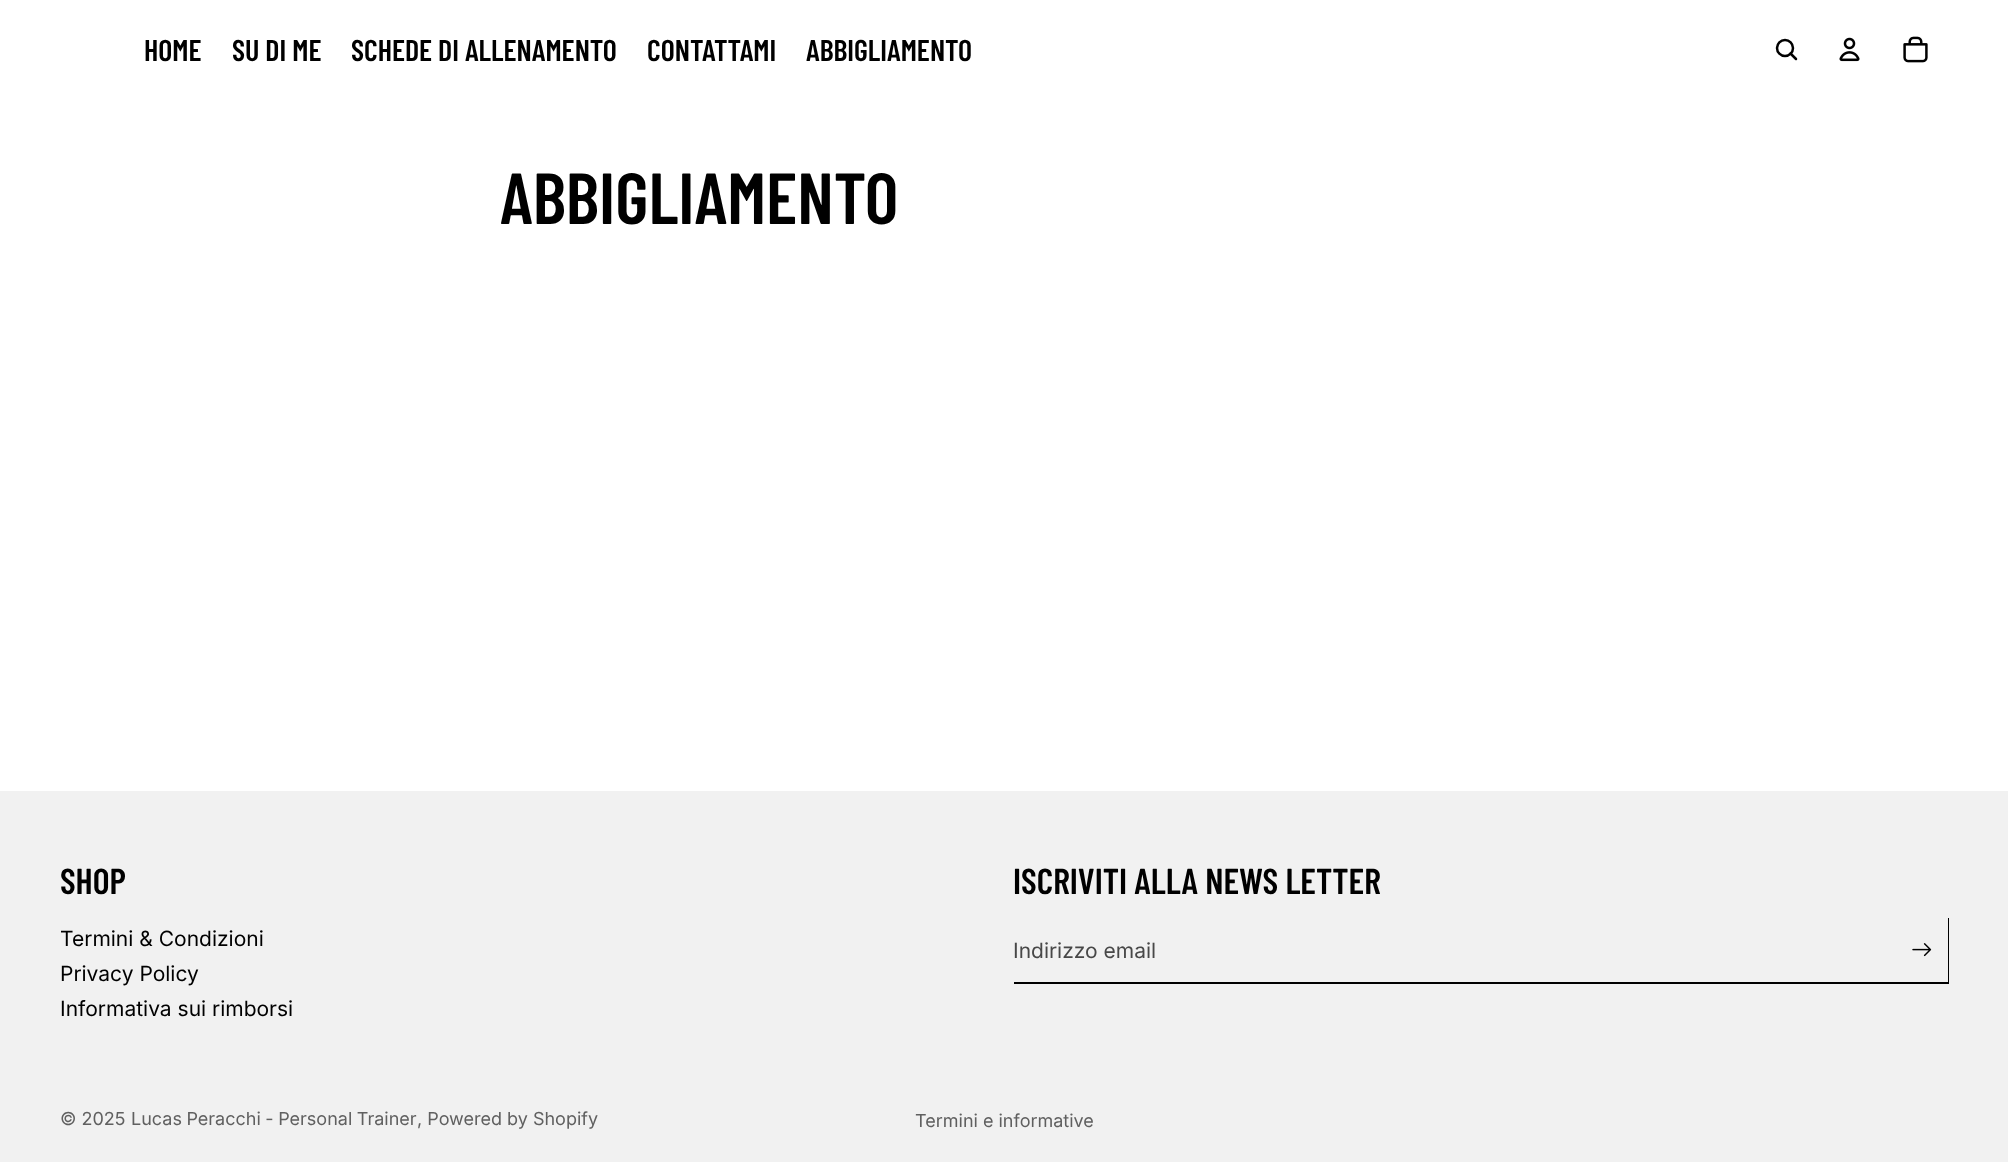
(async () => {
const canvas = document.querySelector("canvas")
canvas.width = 2008
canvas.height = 1162
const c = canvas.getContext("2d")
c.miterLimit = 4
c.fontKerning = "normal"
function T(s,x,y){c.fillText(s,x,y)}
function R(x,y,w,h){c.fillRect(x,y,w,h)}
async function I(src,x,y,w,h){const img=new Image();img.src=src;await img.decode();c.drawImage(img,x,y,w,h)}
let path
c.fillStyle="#fff"
R(0,0,2008,1162)
c.font="600 30px Barlow Condensed"
c.fillStyle="#000"
T("HOME",144,61)
T("SU DI ME",232,61)
T("SCHEDE DI ALLENAMENTO",351,61)
T("CONTATTAMI",647,61)
T("ABBIGLIAMENTO",806,61)
c.beginPath()
c.arc(1785,48,8,0,7)
c.strokeStyle="#000"
c.lineWidth=2.5
c.stroke()
path = new Path2D("M1790.5 53.5l5.5 5.5")
c.lineCap="round"
c.lineJoin="round"
c.stroke(path)
await I("1.png",1839,37,21,25)
await I("2.png",1903,36,25,27)
c.font="600 72px Barlow Condensed"
T("ABBIGLIAMENTO",500,224)
c.fillStyle="#f1f1f1"
R(0,791,2008,371)
c.font="600 36px Barlow Condensed"
c.fillStyle="#000"
T("SHOP",60,894)
c.font="21px Inter"
T("Termini & Condizioni",60,946)
T("Privacy Policy",60,981)
T("Informativa sui rimborsi",60,1016)
c.font="600 36px Barlow Condensed"
T("ISCRIVITI ALLA NEWS LETTER",1013,894)
path = new Path2D("M1014 982v2h935v-66h-1v64z")
c.fill(path)
c.font="21px Inter"
c.fillStyle="#484848"
T("Indirizzo email",1013,958)
await I("3.png",1912,943,20,14)
c.font="18px Inter"
c.fillStyle="#606060"
T("© 2025",60,1125)
c.wordSpacing="-0.5px"
T("Lucas Peracchi - Personal Trainer",131,1125)
c.wordSpacing="0px"
T(", Powered by Shopify",417,1125)
T("Termini e informative",915,1127)
})()
